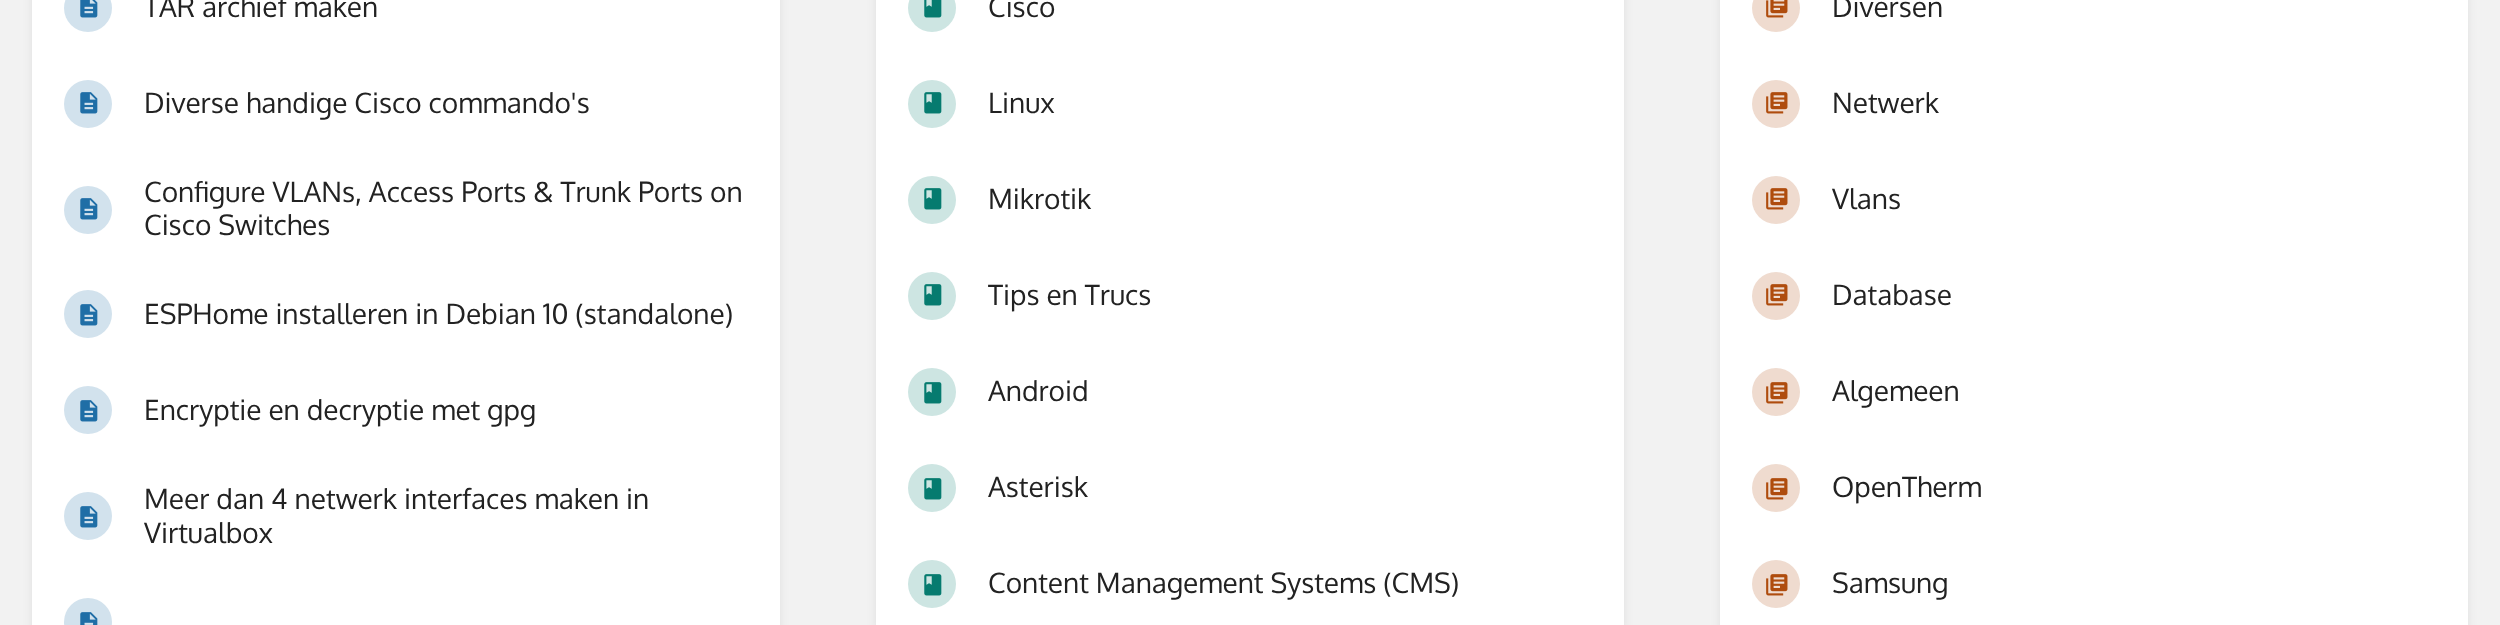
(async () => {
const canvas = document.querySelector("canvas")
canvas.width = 2500
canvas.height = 625
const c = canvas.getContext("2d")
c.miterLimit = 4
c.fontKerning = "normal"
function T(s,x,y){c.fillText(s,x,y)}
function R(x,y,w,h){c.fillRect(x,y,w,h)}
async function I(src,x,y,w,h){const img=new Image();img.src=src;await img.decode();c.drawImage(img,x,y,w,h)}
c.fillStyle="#f2f2f2"
R(0,0,2500,625)
c.fillStyle="#0000001a"
c.filter="blur(6px)"
c.beginPath()
c.roundRect(34,-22,744,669,4)
c.fill()
c.filter="none"
c.fillStyle="#fff"
R(32,0,748,625)
await I("1.png",80,0,18,18)
c.fillStyle="#206ea733"
c.beginPath()
c.arc(88,8,24,0,7)
c.fill()
c.font="28px Oxygen"
c.fillStyle="#222"
T("TAR archief maken",144,17)
await I("2.png",80,92,18,22)
c.fillStyle="#206ea733"
c.beginPath()
c.arc(88,104,24,0,7)
c.fill()
c.fillStyle="#222"
T("Diverse handige Cisco commando's",144,113)
await I("2.png",80,198,18,22)
c.fillStyle="#206ea733"
c.beginPath()
c.arc(88,210,24,0,7)
c.fill()
c.fillStyle="#222"
T("Configure VLANs, Access Ports & Trunk Ports on",144,202)
T("Cisco Switches",144,235)
await I("2.png",80,304,18,22)
c.fillStyle="#206ea733"
c.beginPath()
c.arc(88,314,24,0,7)
c.fill()
c.fillStyle="#222"
T("ESPHome installeren in Debian 10 (standalone)",144,324)
await I("2.png",80,400,18,22)
c.fillStyle="#206ea733"
c.beginPath()
c.arc(88,410,24,0,7)
c.fill()
c.fillStyle="#222"
T("Encryptie en decryptie met gpg",144,420)
await I("2.png",80,506,18,22)
c.fillStyle="#206ea733"
c.beginPath()
c.arc(88,516,24,0,7)
c.fill()
c.fillStyle="#222"
T("Meer dan 4 netwerk interfaces maken in",144,509)
T("Virtualbox",144,543)
await I("3.png",80,612,18,13)
c.fillStyle="#206ea733"
c.beginPath()
c.arc(88,622,24,0,7)
c.fill()
c.fillStyle="#0000001a"
c.filter="blur(6px)"
c.beginPath()
c.roundRect(878,-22,744,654,4)
c.fill()
c.filter="none"
c.fillStyle="#fff"
R(876,0,748,625)
await I("4.png",924,0,18,18)
c.fillStyle="#077b7033"
c.beginPath()
c.arc(932,8,24,0,7)
c.fill()
c.fillStyle="#222"
T("Cisco",988,17)
await I("5.png",924,92,18,22)
c.fillStyle="#077b7033"
c.beginPath()
c.arc(932,104,24,0,7)
c.fill()
c.fillStyle="#222"
T("Linux",988,113)
await I("5.png",924,188,18,22)
c.fillStyle="#077b7033"
c.beginPath()
c.arc(932,200,24,0,7)
c.fill()
c.fillStyle="#222"
T("Mikrotik",988,209)
await I("5.png",924,284,18,22)
c.fillStyle="#077b7033"
c.beginPath()
c.arc(932,296,24,0,7)
c.fill()
c.fillStyle="#222"
T("Tips en Trucs",988,305)
await I("5.png",924,382,18,22)
c.fillStyle="#077b7033"
c.beginPath()
c.arc(932,392,24,0,7)
c.fill()
c.fillStyle="#222"
T("Android",988,401)
await I("5.png",924,478,18,22)
c.fillStyle="#077b7033"
c.beginPath()
c.arc(932,488,24,0,7)
c.fill()
c.fillStyle="#222"
T("Asterisk",988,497)
await I("5.png",924,574,18,22)
c.fillStyle="#077b7033"
c.beginPath()
c.arc(932,584,24,0,7)
c.fill()
c.fillStyle="#222"
T("Content Management Systems (CMS)",988,593)
c.fillStyle="#0000001a"
c.filter="blur(6px)"
c.beginPath()
c.roundRect(1722,-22,744,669,4)
c.fill()
c.filter="none"
c.fillStyle="#fff"
R(1720,0,748,625)
await I("6.png",1766,0,22,18)
c.fillStyle="#af4d0d33"
c.beginPath()
c.arc(1776,8,24,0,7)
c.fill()
c.fillStyle="#222"
T("Diversen",1832,17)
await I("7.png",1766,92,22,22)
c.fillStyle="#af4d0d33"
c.beginPath()
c.arc(1776,104,24,0,7)
c.fill()
c.fillStyle="#222"
T("Netwerk",1832,113)
await I("7.png",1766,188,22,22)
c.fillStyle="#af4d0d33"
c.beginPath()
c.arc(1776,200,24,0,7)
c.fill()
c.fillStyle="#222"
T("Vlans",1832,209)
await I("7.png",1766,284,22,22)
c.fillStyle="#af4d0d33"
c.beginPath()
c.arc(1776,296,24,0,7)
c.fill()
c.fillStyle="#222"
T("Database",1832,305)
await I("7.png",1766,382,22,22)
c.fillStyle="#af4d0d33"
c.beginPath()
c.arc(1776,392,24,0,7)
c.fill()
c.fillStyle="#222"
T("Algemeen",1832,401)
await I("7.png",1766,478,22,22)
c.fillStyle="#af4d0d33"
c.beginPath()
c.arc(1776,488,24,0,7)
c.fill()
c.fillStyle="#222"
T("OpenTherm",1832,497)
await I("7.png",1766,574,22,22)
c.fillStyle="#af4d0d33"
c.beginPath()
c.arc(1776,584,24,0,7)
c.fill()
c.fillStyle="#222"
T("Samsung",1832,593)
})()
